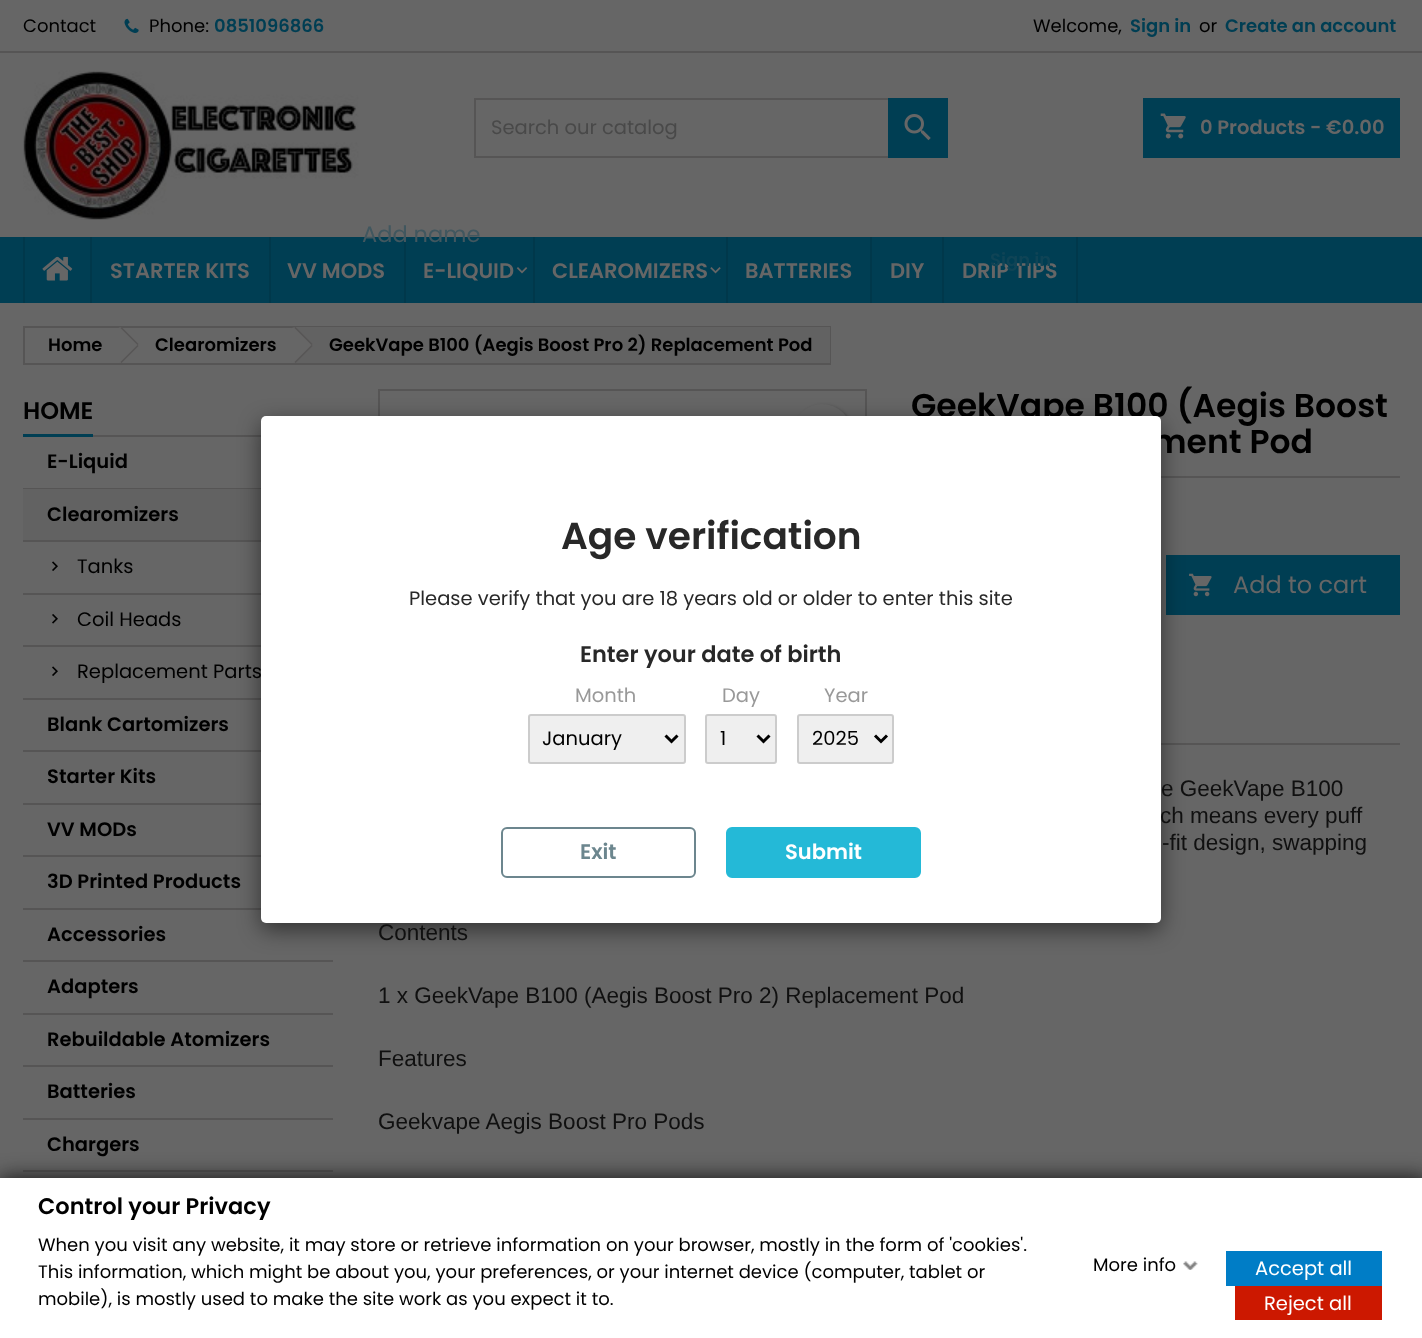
(async () => {
const canvas = document.querySelector("canvas")
canvas.width = 1422
canvas.height = 1338
const c = canvas.getContext("2d")
c.miterLimit = 4
c.fontKerning = "normal"
function T(s,x,y){c.fillText(s,x,y)}
function R(x,y,w,h){c.fillRect(x,y,w,h)}
function Q(x,y,w,h,r){c.beginPath();c.roundRect(x,y,w,h,r);c.fill()}
async function I(src,x,y,w,h){const img=new Image();img.src=src;await img.decode();c.drawImage(img,x,y,w,h)}
let path
c.fillStyle="#666"
R(0,0,1422,1338)
c.fillStyle="#565555"
R(0,51,1422,2)
c.font="18px Poppins"
c.fillStyle="#000"
T("Contact",23,32)
await I("1.png",124,18,15,15)
T("Phone:",149,32)
c.font="600 18px Poppins"
c.fillStyle="#003e53"
T("0851096866",214,32)
c.font="18px Poppins"
c.fillStyle="#000"
T("Welcome,",1033,32)
c.font="600 18px Poppins"
c.fillStyle="#003e53"
T("Sign in",1130,32)
c.font="18px Poppins"
c.fillStyle="#000"
T("or",1199,32)
c.font="600 18px Poppins"
c.fillStyle="#003e53"
T("Create an account",1225,32)
await I("2.png",23,70,336,150)
c.strokeStyle="#565555"
c.lineWidth=2
c.strokeRect(475,99,472,58)
c.font="19.5px Poppins"
c.fillStyle="#494949"
T("Search our catalog",491,134)
c.fillStyle="#003e53"
R(888,98,60,60)
await I("3.png",904,114,27,27)
R(1143,98,257,60)
await I("4.png",1160,113,26,26)
c.font="600 19.5px Poppins"
c.fillStyle="#666"
T("0 Products - €0.00",1200,134)
c.fillStyle="#003e53"
R(0,237,1422,66)
c.fillStyle="#00384b"
R(23,237,2,66)
await I("5.png",42,256,31,25)
R(90,237,2,66)
c.font="600 21px Poppins"
c.fillStyle="#666"
T("STARTER KITS",110,278)
c.fillStyle="#00384b"
R(269,237,2,66)
c.fillStyle="#666"
T("VV MODS",287,278)
c.fillStyle="#00384b"
R(404,237,2,66)
c.fillStyle="#666"
T("E-LIQUID",423,278)
await I("6.png",516,267,12,7)
c.fillStyle="#00384b"
R(533,237,2,66)
c.fillStyle="#666"
T("CLEAROMIZERS",552,278)
await I("7.png",710,267,11,7)
c.fillStyle="#00384b"
R(726,237,2,66)
c.fillStyle="#666"
T("BATTERIES",745,278)
c.fillStyle="#00384b"
R(870,237,2,66)
c.fillStyle="#666"
T("DIY",890,278)
c.fillStyle="#00384b"
R(1076,237,2,66)
R(942,237,2,66)
c.fillStyle="#666"
T("DRIP TIPS",962,278)
c.font="22.5px Poppins"
c.fillStyle="#41575f"
T("Add name",362,242)
c.font="600 18px Poppins"
c.fillStyle="#0f4456"
T("Sign in",990,266)
c.fillStyle="#565555"
R(93,435,168,2)
R(23,488,238,1)
c.fillStyle="#626262"
R(23,489,238,51)
c.fillStyle="#565555"
R(23,540,238,2)
R(23,593,238,2)
R(23,645,238,2)
R(23,698,238,2)
R(23,750,238,2)
R(23,803,238,2)
R(23,855,238,2)
R(23,908,238,2)
R(23,960,310,2)
c.strokeRect(379,390,487,28)
c.fillStyle="#00000033"
c.filter="blur(1.5px)"
c.beginPath()
c.roundRect(794,405,60,60,30)
c.fill()
c.filter="none"
c.fillStyle="#666"
c.beginPath()
c.arc(822,434,30,0,7)
c.fill()
c.fillStyle="#565555"
R(1161,476,239,2)
c.fillStyle="#003e53"
R(1166,555,234,60)
await I("10.png",1189,573,23,24)
c.fillStyle="#565555"
R(1161,743,239,2)
c.fillStyle="#00000080"
c.filter="blur(11px)"
c.beginPath()
c.roundRect(261,423,900,507,5)
c.fill()
c.filter="none"
c.font="600 33px Poppins"
c.fillStyle="#000"
T("GeekVape B100 (Aegis Boost",911,417)
T("ment Pod",1152,453)
c.fillStyle="#fff"
Q(261,416,900,507,5)
c.font="600 37.5px Poppins"
c.fillStyle="#282828"
T("Age verification",561,549)
c.font="19.5px Poppins"
T("Please verify that you are 18 years old or older to enter this site",409,605)
c.font="600 22.5px Poppins"
T("Enter your date of birth",580,662)
c.font="19.5px Poppins"
c.fillStyle="#999"
T("Month",575,702)
c.fillStyle="#efefef"
c.beginPath()
c.roundRect(529,715,156,48,2)
c.fill()
c.strokeStyle="#ccc"
c.stroke()
path = new Path2D("M665.5 735.5l6 6l6-6")
c.strokeStyle="#000"
c.lineWidth=3
c.stroke(path)
c.fillStyle="#000"
T("January",542,745)
c.fillStyle="#999"
T("Day",722,702)
c.fillStyle="#efefef"
c.beginPath()
c.roundRect(706,715,70,48,2)
c.fill()
c.strokeStyle="#ccc"
c.lineWidth=2
c.stroke()
path = new Path2D("M757.5 735.5l6 6l6-6")
c.strokeStyle="#000"
c.lineWidth=3
c.stroke(path)
c.fillStyle="#000"
T("1",720,745)
c.fillStyle="#999"
T("Year",824,702)
c.fillStyle="#efefef"
c.beginPath()
c.roundRect(798,715,95,48,2)
c.fill()
c.strokeStyle="#ccc"
c.lineWidth=2
c.stroke()
path = new Path2D("M875 735.5l6 6l6-6")
c.strokeStyle="#000"
c.lineWidth=3
c.stroke(path)
c.fillStyle="#000"
T("2025",812,745)
c.beginPath()
c.roundRect(502,828,193,49,5)
c.strokeStyle="#6c868e"
c.lineWidth=2
c.stroke()
c.font="600 21px Poppins"
c.fillStyle="#6c868e"
T("Exit",580,859)
c.fillStyle="#24b9d7"
c.beginPath()
c.roundRect(727,828,193,49,5)
c.fill()
c.strokeStyle="#24b9d7"
c.stroke()
c.fillStyle="#fff"
T("Submit",785,859)
c.strokeStyle="#565555"
c.strokeRect(24,327,806,37)
c.font="600 18px Poppins"
c.fillStyle="#000"
T("Home",48,351)
c.fillStyle="#666"
path = new Path2D("M122.5 328l15 15c1 1 1 3 0 4l-15 15c-1 1-3 1-4 0l-15-15c-1.5-1-1.5-3 0-4l15-15c1-1 3-1 4 0z")
c.fill(path)
c.fillStyle="#565555"
path = new Path2D("M121.5 327l17 17l-1 1l-17-17zm16 18l1 1l-17 17l-1-1z")
c.fill(path)
c.fillStyle="#000"
T("Clearomizers",155,351)
c.fillStyle="#626262"
R(296,327,534,36)
c.fillStyle="#666"
path = new Path2D("M296.5 328l15 15c1 1 1 3 0 4l-15 15c-1 1-3 1-4.5 0l-14.5-15c-1.5-1-1.5-3 0-4l14.5-15c1.5-1 3.5-1 4.5 0z")
c.fill(path)
c.fillStyle="#565555"
path = new Path2D("M295.5 327l17 17l-1 1l-17-17zm16 18l1 1l-17 17l-1-1z")
c.fill(path)
c.fillStyle="#000"
T("GeekVape B100 (Aegis Boost Pro 2) Replacement Pod",329,351)
c.fillStyle="#003e53"
R(23,434,70,3)
c.font="600 24px Poppins"
c.fillStyle="#000"
T("HOME",23,419)
c.font="600 19.5px Poppins"
T("E-Liquid",47,468)
T("Clearomizers",47,521)
await I("8.png",52,561,6,10)
c.font="19.5px Poppins"
T("Tanks",77,573)
await I("9.png",52,614,6,10)
T("Coil Heads",77,626)
await I("8.png",52,666,6,10)
T("Replacement Parts",77,678)
c.font="600 19.5px Poppins"
T("Blank Cartomizers",47,731)
T("Starter Kits",47,783)
T("VV MODs",47,836)
T("3D Printed Products",47,888)
T("Accessories",47,941)
c.fillStyle="#565555"
R(23,1013,310,2)
c.fillStyle="#000"
T("Adapters",47,993)
c.fillStyle="#565555"
R(23,1065,310,2)
c.fillStyle="#000"
T("Rebuildable Atomizers",47,1046)
c.fillStyle="#565555"
R(23,1118,310,2)
c.fillStyle="#000"
T("Batteries",47,1098)
c.fillStyle="#565555"
R(23,1170,310,2)
c.fillStyle="#000"
T("Chargers",47,1151)
c.font="24px Poppins"
c.fillStyle="#666"
T("Add to cart",1233,593)
c.font="22.5px Liberation Sans"
c.fillStyle="#101010"
T("e GeekVape B100",1161,796)
T("ch means every puff",1160,823)
T("-fit design, swapping",1162,850)
T("Contents",378,940)
T("1 x GeekVape B100 (Aegis Boost Pro 2) Replacement Pod",378,1003)
T("Features",378,1066)
T("Geekvape Aegis Boost Pro Pods",378,1129)
c.fillStyle="#121212"
c.filter="blur(10.5px)"
c.beginPath()
c.rect(0,1178,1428,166)
c.fill()
c.filter="none"
c.fillStyle="#fff"
R(0,1178,1422,160)
c.font="600 22.5px Poppins"
c.fillStyle="#000"
T("Control your Privacy",38,1214)
c.font="18px Poppins"
T("When you visit any website, it may store or retrieve information on your browser, mostly in the form of 'cookies'.",38,1251)
T("This information, which might be about you, your preferences, or your internet device (computer, tablet or",38,1278)
T("mobile), is mostly used to make the site work as you expect it to.",38,1305)
T("More info",1093,1271)
await I("11.png",1183,1261,15,9)
c.fillStyle="#007dc6"
R(1226,1251,156,35)
c.font="19.5px Poppins"
c.fillStyle="#fff"
T("Accept all",1255,1275)
c.fillStyle="#cc1800"
R(1235,1286,147,34)
c.fillStyle="#fff"
T("Reject all",1264,1310)
})()
